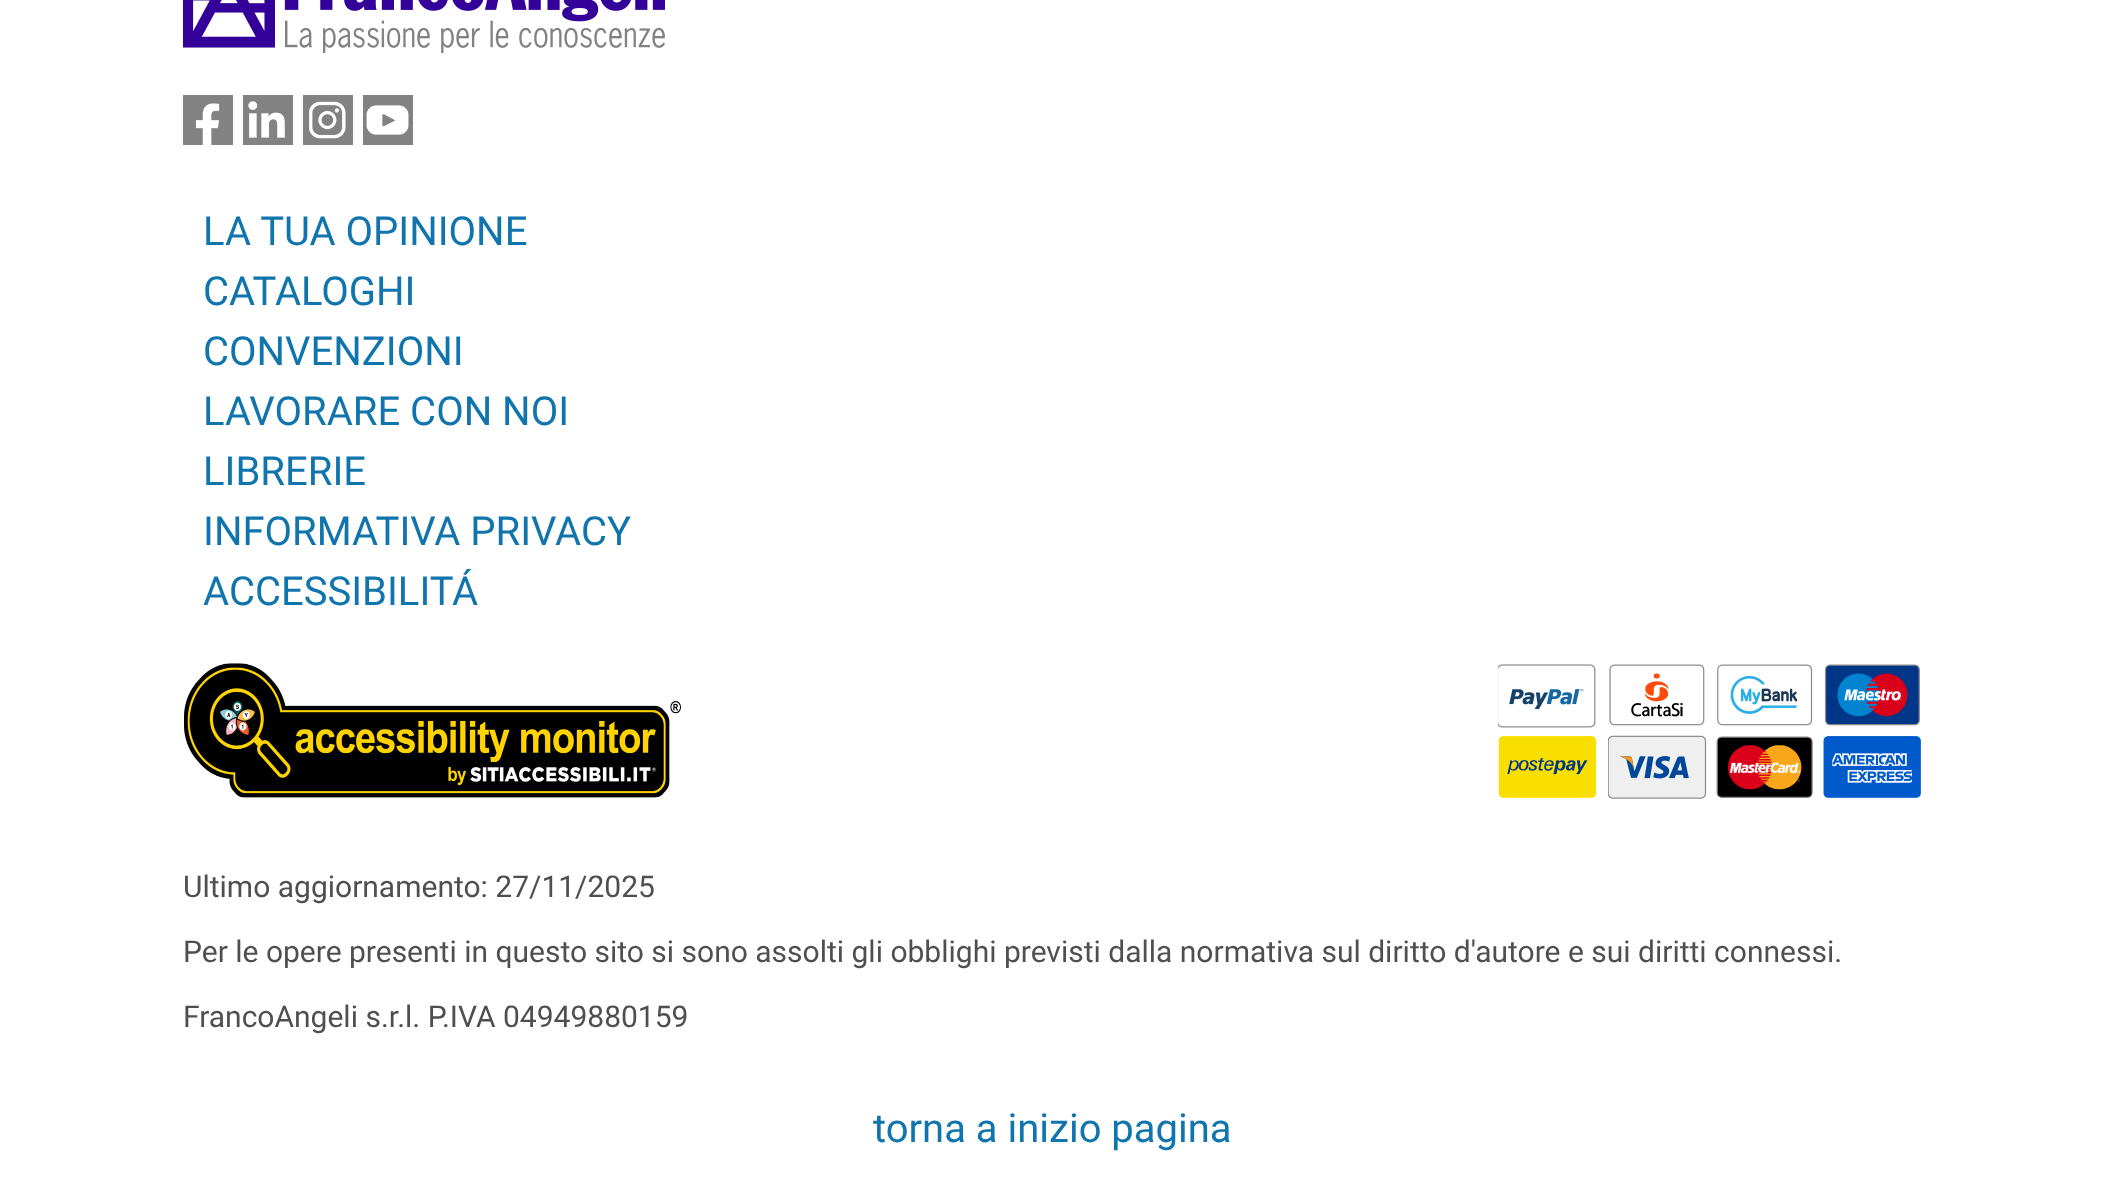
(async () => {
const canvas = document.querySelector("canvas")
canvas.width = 2103
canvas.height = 1200
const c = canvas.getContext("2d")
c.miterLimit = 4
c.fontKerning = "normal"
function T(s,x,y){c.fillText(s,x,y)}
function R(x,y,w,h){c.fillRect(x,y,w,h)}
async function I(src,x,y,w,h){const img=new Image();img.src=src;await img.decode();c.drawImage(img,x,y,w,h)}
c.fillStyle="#fff"
R(0,0,2103,1200)
await I("1.png",183,0,482,54)
c.fillStyle="#828282"
R(183,95,50,50)
await I("2.png",195,103,25,42)
R(243,95,50,50)
await I("3.png",248,101,37,37)
R(303,95,50,50)
await I("4.png",309,101,37,38)
R(363,95,50,50)
await I("5.png",366,105,43,30)
c.font="40px Roboto"
c.fillStyle="#1074ad"
T("LA TUA OPINIONE",203,245)
T("CATALOGHI",203,305)
T("CONVENZIONI",203,365)
T("LAVORARE CON NOI",203,425)
T("LIBRERIE",203,485)
T("INFORMATIVA PRIVACY",203,545)
T("ACCESSIBILITÁ",203,605)
await I("6.png",184,663,497,135)
await I("7.png",1498,664,98,64)
await I("8.png",1609,664,96,62)
await I("9.png",1717,664,96,62)
await I("10.png",1824,664,96,62)
await I("11.png",1498,736,99,62)
await I("12.png",1608,735,99,64)
await I("13.png",1716,736,97,62)
await I("14.png",1823,736,98,62)
c.font="30px Roboto"
c.fillStyle="#4f4f4f"
T("Ultimo aggiornamento: 27/11/2025",183,897)
T("Per le opere presenti in questo sito si sono assolti gli obblighi previsti dalla normativa sul diritto d'autore e sui diritti connessi.",183,962)
T("FrancoAngeli s.r.l. P.IVA 04949880159",183,1027)
c.font="40px Roboto"
c.fillStyle="#1074ad"
T("torna a inizio pagina",873,1142)
})()
